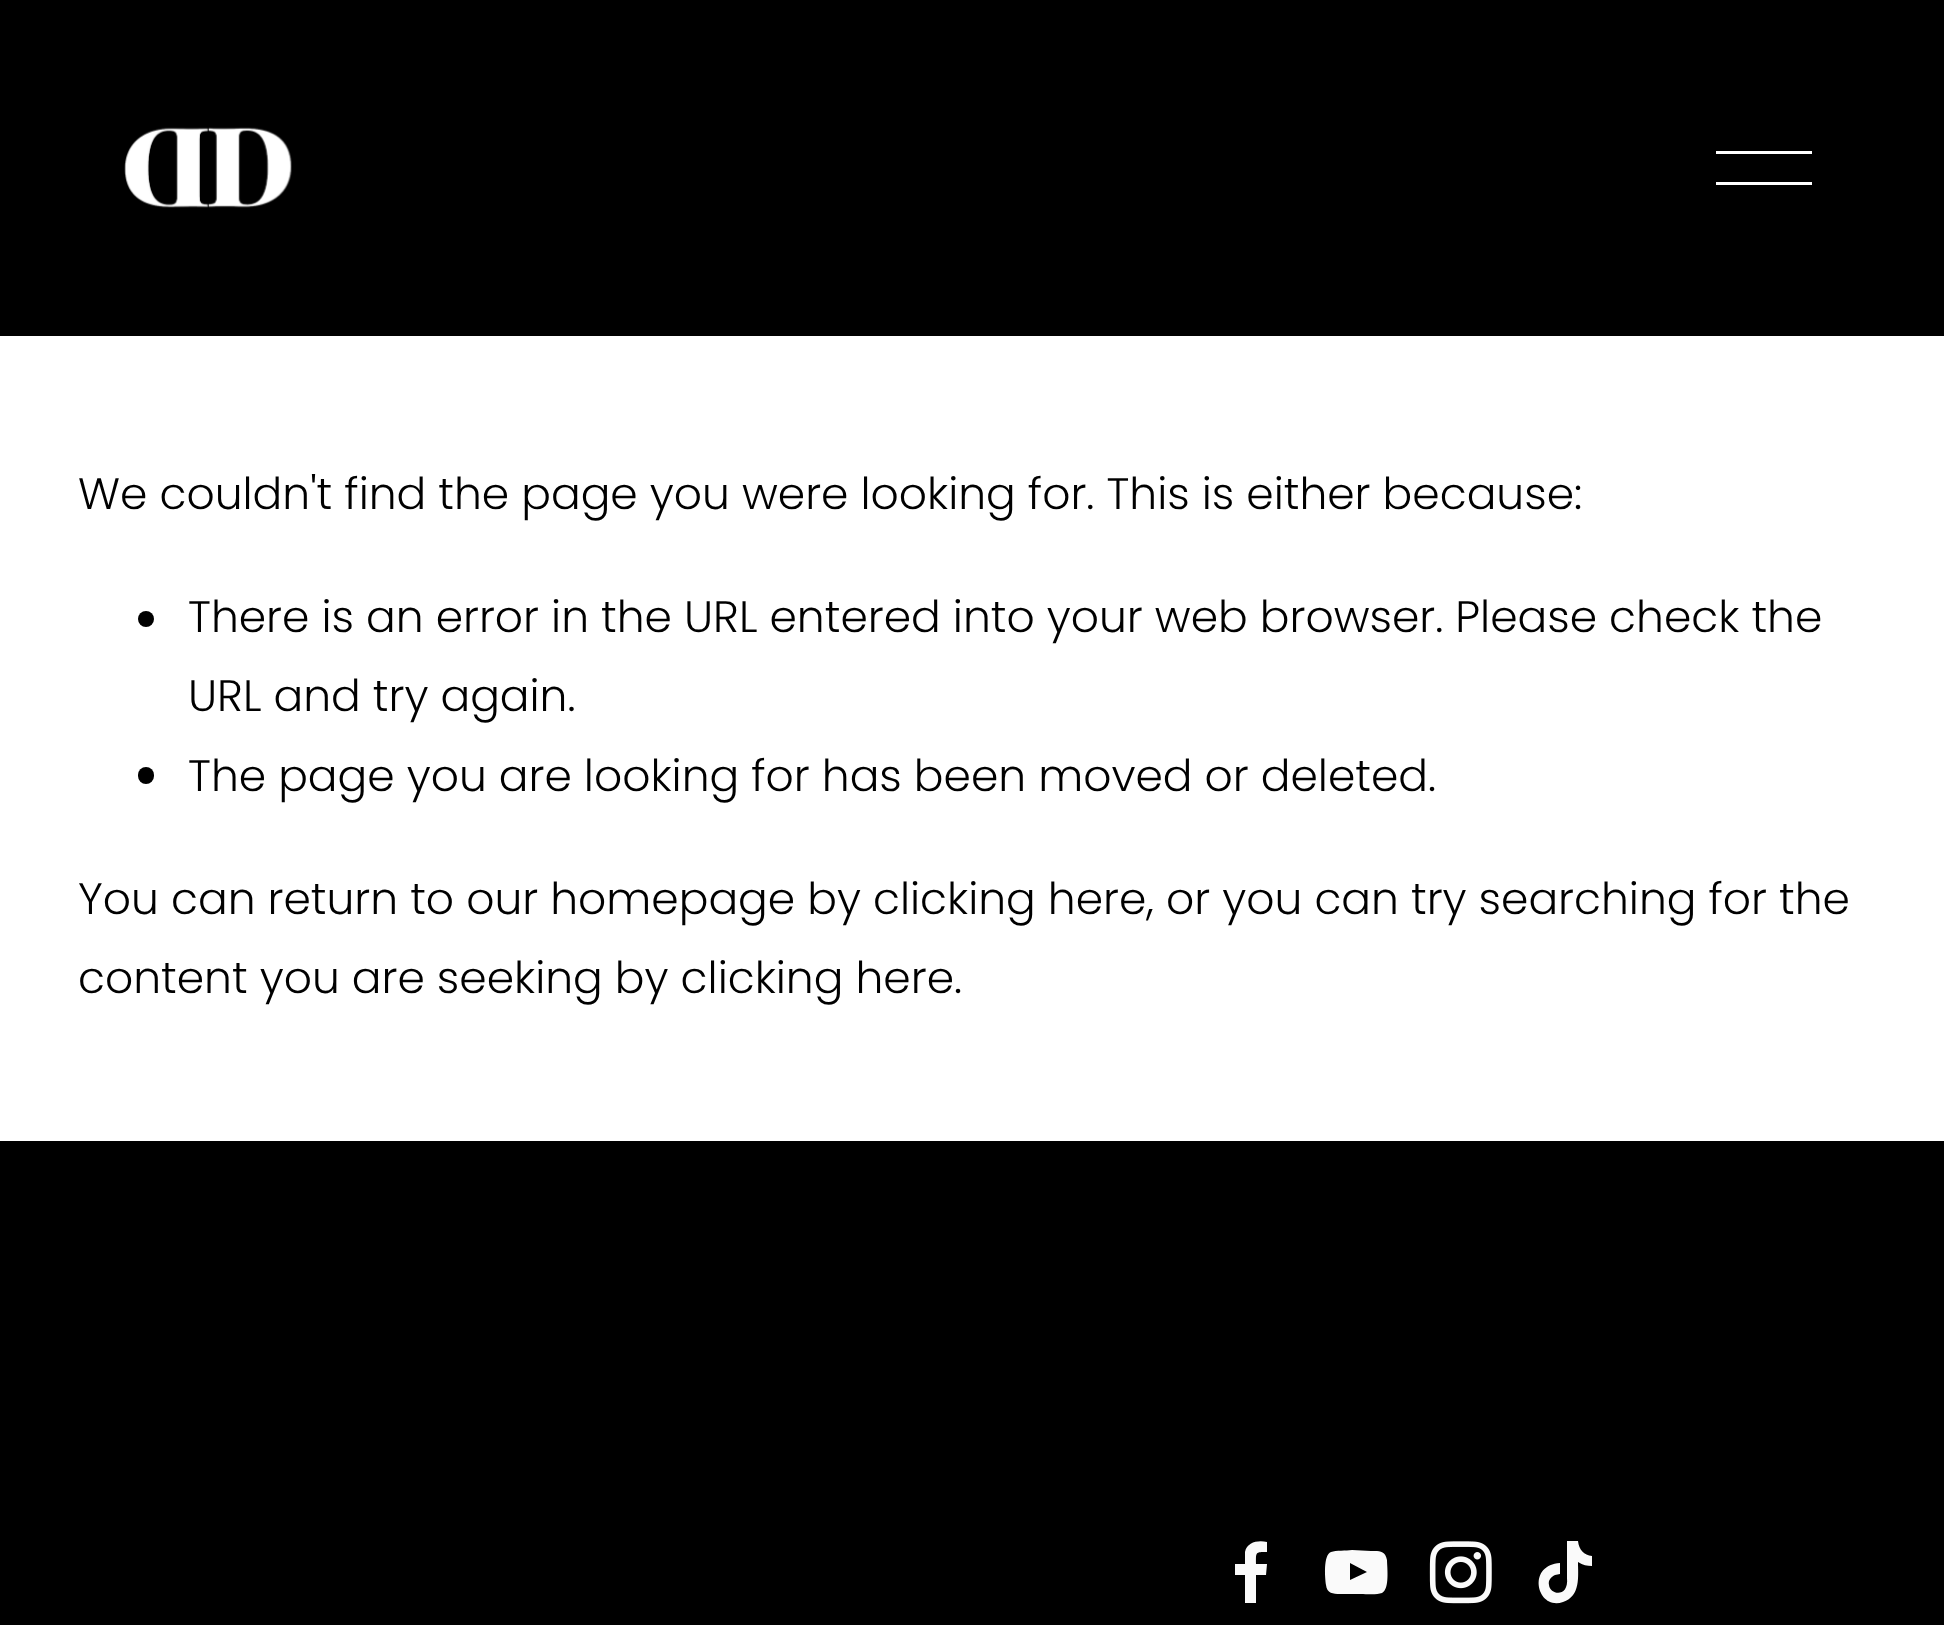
(async () => {
const canvas = document.querySelector("canvas")
canvas.width = 1944
canvas.height = 1625
const c = canvas.getContext("2d")
c.miterLimit = 4
c.fontKerning = "normal"
function T(s,x,y){c.fillText(s,x,y)}
function R(x,y,w,h){c.fillRect(x,y,w,h)}
function Q(x,y,w,h,r){c.beginPath();c.roundRect(x,y,w,h,r);c.fill()}
async function I(src,x,y,w,h){const img=new Image();img.src=src;await img.decode();c.drawImage(img,x,y,w,h)}
let path
c.fillStyle="#fff"
R(0,0,1944,1625)
c.fillStyle="#000"
R(0,0,1944,336)
await I("1.png",124,127,168,81)
c.fillStyle="#fff"
R(1716,151,96,3)
R(1716,182,96,3)
c.font="300 44px Poppins"
c.fillStyle="#000"
T("We couldn't find the page you were looking for. This is either because:",78,509)
c.beginPath()
c.arc(146,619,8,0,7)
c.fill()
T("There is an error in the URL entered into your web browser. Please check the",188,632)
T("URL and try again.",188,711)
Q(138,767,16,17,8)
T("The page you are looking for has been moved or deleted.",188,791)
T("You can return to our homepage by clicking here, or you can try searching for the",78,914)
T("content you are seeking by clicking here.",78,993)
R(0,1141,1944,484)
c.fillStyle="#fafafa"
path = new Path2D("M1256 1603v-28h10l1-11h-11c0-12-1-12 11-12v-10c-9-2-20 0-22 10v12h-10v11h10v28z")
c.fill(path)
path = new Path2D("M1387 1560c-2-10-8-9-16-9l-19-1c-6 1-16 0-21 2c-8 3-6 26-5 33c1 10 10 9 18 9h17c5 0 16 1 21-1c8-4 5-26 5-33zm-37 20v-17l17 9z")
c.fill(path)
await I("2.png",1429,1541,63,63)
path = new Path2D("M1578 1541c1 9 6 14 14 15v10c-5 0-9-1-14-4c0 14 3 34-15 40c-26 9-37-37-3-39v11l-5 1c-4 2-7 5-6 10c1 10 20 13 18-7v-37z")
c.fill(path)
})()
